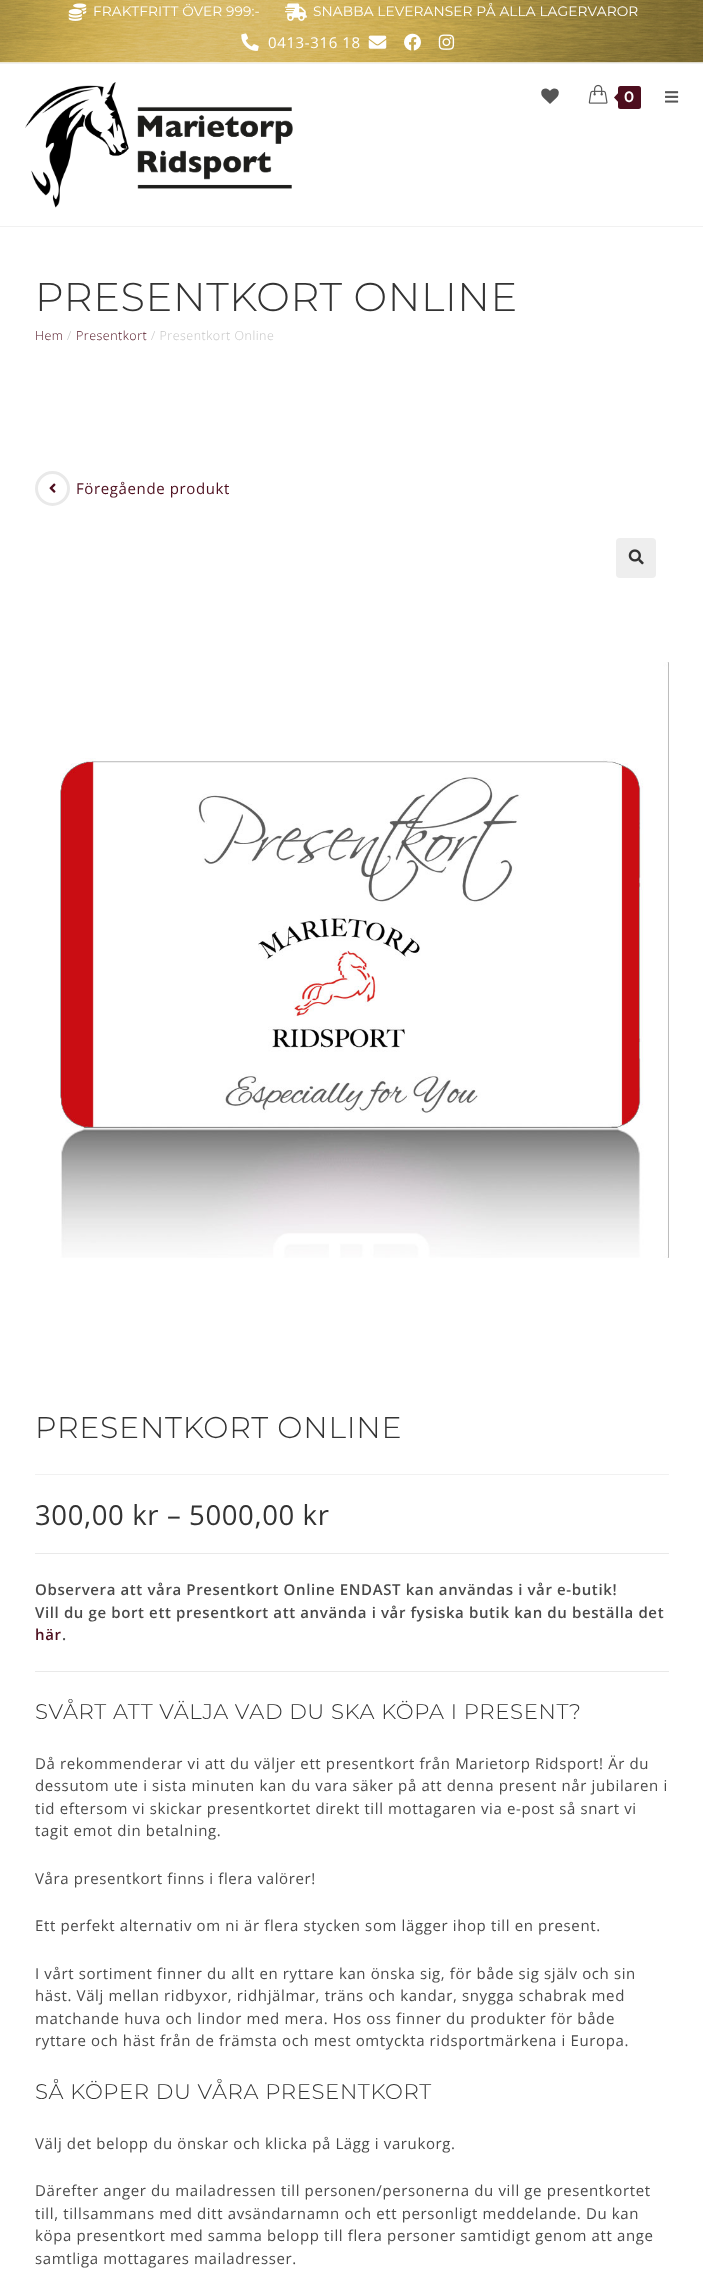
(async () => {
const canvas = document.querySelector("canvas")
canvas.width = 703
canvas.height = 2292
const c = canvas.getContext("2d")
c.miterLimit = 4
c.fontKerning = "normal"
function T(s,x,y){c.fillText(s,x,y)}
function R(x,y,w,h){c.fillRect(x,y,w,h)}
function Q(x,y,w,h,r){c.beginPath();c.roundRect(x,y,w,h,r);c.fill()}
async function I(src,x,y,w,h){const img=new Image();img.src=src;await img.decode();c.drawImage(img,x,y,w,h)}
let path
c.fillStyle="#fff"
R(0,0,703,2292)
await I("1.png",0,0,703,63)
c.fillStyle="#f1f1f1"
R(0,63,703,1)
await I("2.png",68,3,19,18)
c.letterSpacing="0.1px"
c.font="13.75px Montserrat"
c.fillStyle="#fff"
T("FRAKTFRITT ÖVER 999:-",93,16)
await I("3.png",285,3,22,18)
T("SNABBA LEVERANSER PÅ ALLA LAGERVAROR",313,16)
await I("4.png",241,33,18,18)
c.letterSpacing="0.62px"
c.font="15px Open Sans"
T("0413-316 18",268,48)
await I("5.png",368,35,19,14)
await I("6.png",404,33,17,18)
await I("7.png",438,34,17,16)
c.fillStyle="#f1f1f1"
R(0,226,703,1)
await I("8.png",25,82,268,126)
await I("9.png",541,88,18,16)
await I("10.png",588,84,20,20)
c.fillStyle="#4d0e1e"
Q(618,86,23,23,2.5)
path = new Path2D("M620 91v13l-6-6.5z")
c.fill(path)
c.letterSpacing="0.75px"
c.font="600 15px Montserrat"
c.fillStyle="#fff"
T("0",624,102)
await I("11.png",665,91,14,12)
c.letterSpacing="0.62px"
c.font="300 40px Montserrat"
c.fillStyle="#333"
T("PRESENTKORT ONLINE",35,311)
c.letterSpacing="0.5px"
c.font="300 12.5px Open Sans"
c.fillStyle="#4d0e1e"
T("Hem",35,340)
c.fillStyle="#c6c6c6"
T("/",67,340)
c.fillStyle="#4d0e1e"
T("Presentkort",76,340)
c.fillStyle="#c6c6c6"
T("/ Presentkort Online",151,340)
c.beginPath()
c.arc(52.5,488.5,16,0,7)
c.strokeStyle="#e9e9e9"
c.lineWidth=3
c.stroke()
await I("12.png",49,483,7,10)
c.letterSpacing="0.62px"
c.font="15px Open Sans"
c.fillStyle="#4d0e1e"
T("Föregående produkt",76,494)
c.fillStyle="#eee"
Q(616,538,40,40,4)
await I("13.png",628,549,16,16)
await I("14.png",60,662,609,596)
c.fillStyle="#f1f1f1"
R(35,1474,634,1)
c.letterSpacing="0.75px"
c.font="300 30px Montserrat"
c.fillStyle="#333"
T("PRESENTKORT ONLINE",35,1438)
c.letterSpacing="0.62px"
c.font="27.5px Open Sans"
T("300,00 kr – 5000,00 kr",35,1525)
c.fillStyle="#e9e9e9"
R(35,1553,634,1)
c.font="600 15px Open Sans"
c.fillStyle="#4a4a4a"
T("Observera att våra Presentkort Online ENDAST kan användas i vår e-butik!",35,1595)
T("Vill du ge bort ett presentkort att använda i vår fysiska butik kan du beställa det",35,1618)
c.fillStyle="#4d0e1e"
T("här",35,1640)
c.fillStyle="#4a4a4a"
T(".",62,1640)
c.fillStyle="#e9e9e9"
R(35,1671,634,1)
c.font="300 21.25px Montserrat"
c.fillStyle="#333"
T("SVÅRT ATT VÄLJA VAD DU SKA KÖPA I PRESENT?",35,1719)
c.font="15px Open Sans"
c.fillStyle="#4a4a4a"
T("Då rekommenderar vi att du väljer ett presentkort från Marietorp Ridsport! Är du",35,1769)
T("dessutom ute i sista minuten kan du vara säker på att denna present når jubilaren i",35,1791)
T("tid eftersom vi skickar presentkortet direkt till mottagaren via e-post så snart vi",35,1814)
T("tagit emot din betalning.",35,1836)
T("Våra presentkort finns i flera valörer!",35,1884)
T("Ett perfekt alternativ om ni är flera stycken som lägger ihop till en present.",35,1931)
T("I vårt sortiment finner du allt en ryttare kan önska sig, för både sig själv och sin",35,1979)
T("häst. Välj mellan ridbyxor, ridhjälmar, träns och kandar, snygga schabrak med",35,2001)
T("matchande huva och lindor med mera. Hos oss finner du produkter för både",35,2024)
T("ryttare och häst från de främsta och mest omtyckta ridsportmärkena i Europa.",35,2046)
c.font="300 21.25px Montserrat"
c.fillStyle="#333"
T("SÅ KÖPER DU VÅRA PRESENTKORT",35,2099)
c.font="15px Open Sans"
c.fillStyle="#4a4a4a"
T("Välj det belopp du önskar och klicka på Lägg i varukorg.",35,2149)
T("Därefter anger du mailadressen till personen/personerna du vill ge presentkortet",35,2196)
T("till, tillsammans med ditt avsändarnamn och ett personligt meddelande. Du kan",35,2219)
T("köpa presentkort med samma belopp till flera personer samtidigt genom att ange",35,2241)
T("samtliga mottagares mailadresser.",35,2264)
})()
